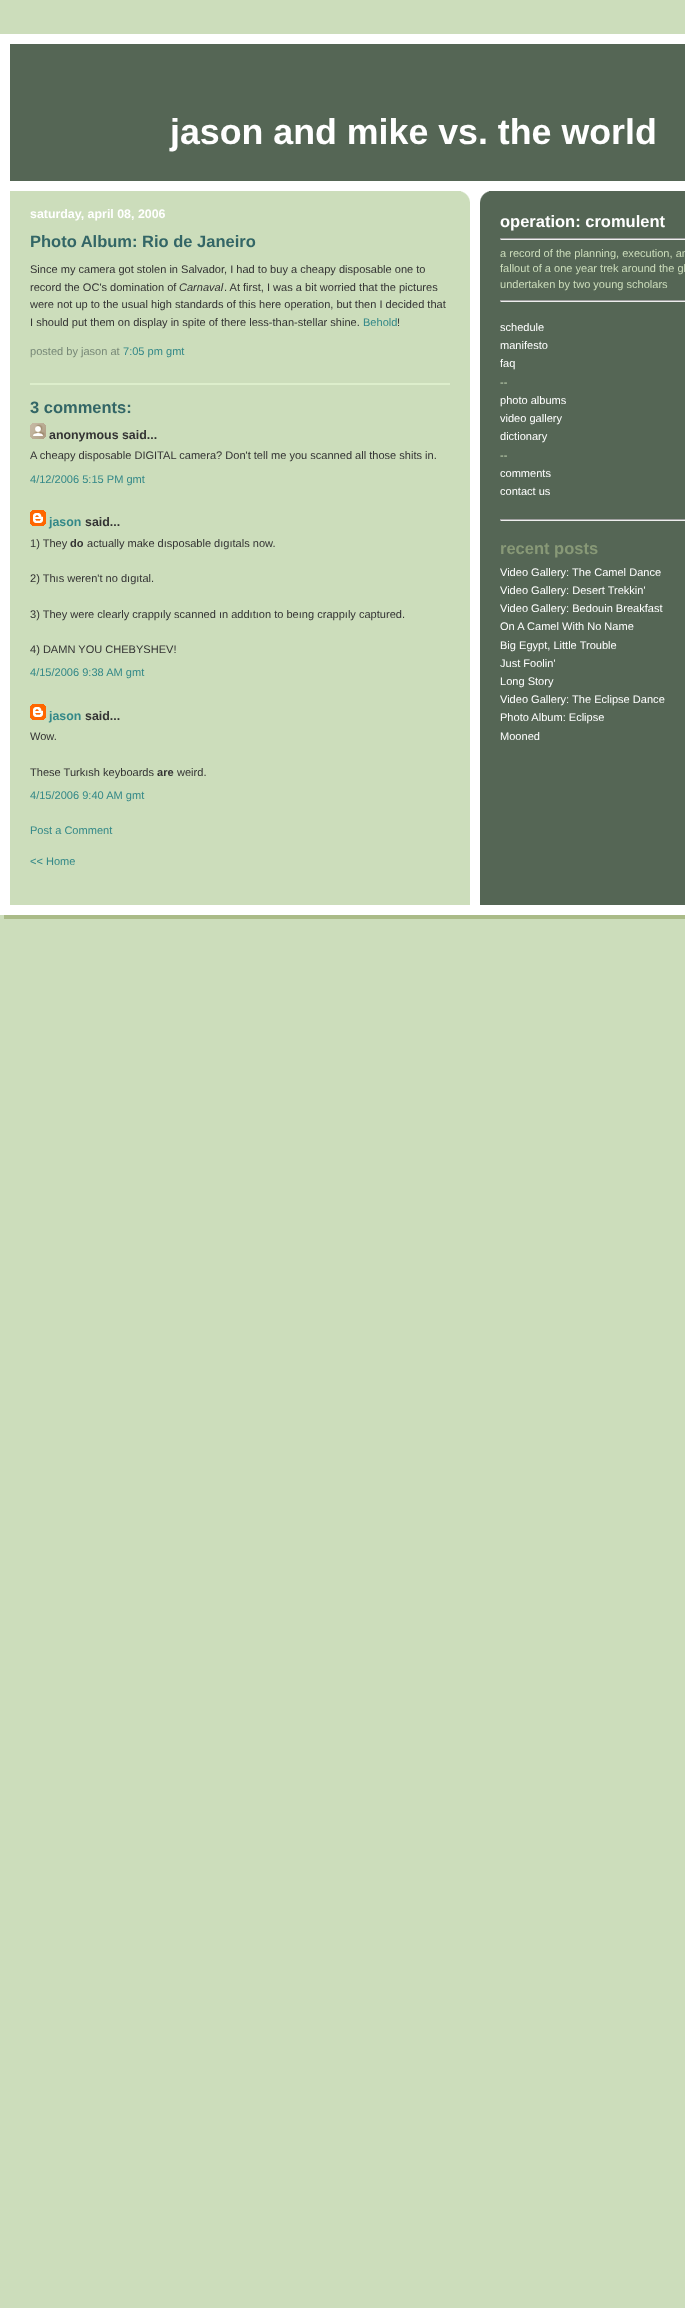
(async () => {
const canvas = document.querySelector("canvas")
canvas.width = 685
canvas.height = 2308
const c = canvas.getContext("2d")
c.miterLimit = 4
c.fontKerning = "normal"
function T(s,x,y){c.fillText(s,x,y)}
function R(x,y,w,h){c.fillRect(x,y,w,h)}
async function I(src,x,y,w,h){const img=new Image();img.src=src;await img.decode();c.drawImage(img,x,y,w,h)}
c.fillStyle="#cdb"
R(0,0,685,2308)
c.fillStyle="#ab8"
R(4,915,681,4)
c.fillStyle="#fff"
R(0,34,685,881)
c.fillStyle="#565"
R(10,44,675,137)
c.font="bold 35.75px Liberation Sans"
c.fillStyle="#fff"
T("jason and mike vs. the world",170,144)
await I("1.png",10,191,675,714)
await I("2.png",461,191,9,11)
c.font="bold 12.4px Liberation Sans"
T("saturday, april 08, 2006",30,218)
c.font="bold 16.5px Liberation Sans"
c.fillStyle="#366"
T("Photo Album: Rio de Janeiro",30,247)
c.font="11.05px Liberation Sans"
c.fillStyle="#333"
T("Since my camera got stolen in Salvador, I had to buy a cheapy disposable one to",30,273)
T("record the OC's domination of",30,291)
c.font="italic 11.05px Liberation Sans"
T("Carnaval",179,291)
c.font="11.05px Liberation Sans"
T(". At first, I was a bit worried that the pictures",224,291)
T("were not up to the usual high standards of this here operation, but then I decided that",30,308)
T("I should put them on display in spite of there less-than-stellar shine.",30,326)
c.fillStyle="#388"
T("Behold",363,326)
c.fillStyle="#333"
T("!",397,326)
c.fillStyle="#787"
T("posted by jason at",30,355)
c.fillStyle="#388"
T("7:05 pm gmt",123,355)
c.fillStyle="#dec"
R(30,383,420,2)
c.font="bold 16.5px Liberation Sans"
c.fillStyle="#366"
T("3 comments:",30,413)
await I("3.png",30,423,16,16)
c.font="bold 12.4px Liberation Sans"
c.fillStyle="#333"
T("anonymous said...",49,439)
c.font="11.05px Liberation Sans"
T("A cheapy disposable DIGITAL camera? Don't tell me you scanned all those shits in.",30,459)
c.fillStyle="#388"
T("4/12/2006 5:15 PM gmt",30,483)
await I("4.png",30,510,16,16)
c.font="bold 12.4px Liberation Sans"
T("jason",49,526)
c.fillStyle="#333"
T("said...",85,526)
c.font="11.05px Liberation Sans"
T("1) They",30,547)
c.font="bold 11.05px Liberation Sans"
T("do",70,547)
c.font="11.05px Liberation Sans"
T("actually make dısposable dıgıtals now.",87,547)
T("2) Thıs weren't no dıgıtal.",30,582)
T("3) They were clearly crappıly scanned ın addıtıon to beıng crappıly captured.",30,618)
T("4) DAMN YOU CHEBYSHEV!",30,653)
c.fillStyle="#388"
T("4/15/2006 9:38 AM gmt",30,676)
await I("4.png",30,704,16,16)
c.font="bold 12.4px Liberation Sans"
T("jason",49,720)
c.fillStyle="#333"
T("said...",85,720)
c.font="11.05px Liberation Sans"
T("Wow.",30,740)
T("These Turkısh keyboards",30,776)
c.font="bold 11.05px Liberation Sans"
T("are",157,776)
c.font="11.05px Liberation Sans"
T("weird.",177,776)
c.fillStyle="#388"
T("4/15/2006 9:40 AM gmt",30,799)
T("Post a Comment",30,834)
T("<< Home",30,865)
await I("5.png",480,191,9,12)
c.font="bold 16.5px Liberation Sans"
c.fillStyle="#fff"
T("operation: cromulent",500,227)
c.fillStyle="#9f9f9f"
R(500,238,185,1)
c.fillStyle="#eee"
R(500,239,185,1)
c.fillStyle="#9f9f9f"
R(500,238,1,2)
c.font="11.05px Liberation Sans"
c.fillStyle="#cdb"
T("a record of the planning, execution, an",500,257)
T("fallout of a one year trek around the gl",500,272)
T("undertaken by two young scholars",500,288)
c.fillStyle="#9f9f9f"
R(500,300,185,1)
c.fillStyle="#eee"
R(500,301,185,1)
c.fillStyle="#9f9f9f"
R(500,300,1,2)
c.fillStyle="#fff"
T("schedule",500,331)
T("manifesto",500,349)
T("faq",500,367)
c.fillStyle="#cdb"
T("--",500,386)
c.fillStyle="#fff"
T("photo albums",500,404)
T("video gallery",500,422)
T("dictionary",500,440)
c.fillStyle="#cdb"
T("--",500,459)
c.fillStyle="#fff"
T("comments",500,477)
T("contact us",500,495)
c.fillStyle="#9f9f9f"
R(500,519,185,1)
c.fillStyle="#eee"
R(500,520,185,1)
c.fillStyle="#9f9f9f"
R(500,519,1,2)
c.font="bold 16.5px Liberation Sans"
c.fillStyle="#897"
T("recent posts",500,554)
c.font="11.05px Liberation Sans"
c.fillStyle="#fff"
T("Video Gallery: The Camel Dance",500,576)
T("Video Gallery: Desert Trekkin'",500,594)
T("Video Gallery: Bedouin Breakfast",500,612)
T("On A Camel With No Name",500,630)
T("Big Egypt, Little Trouble",500,649)
T("Just Foolin'",500,667)
T("Long Story",500,685)
T("Video Gallery: The Eclipse Dance",500,703)
T("Photo Album: Eclipse",500,721)
T("Mooned",500,740)
})()
